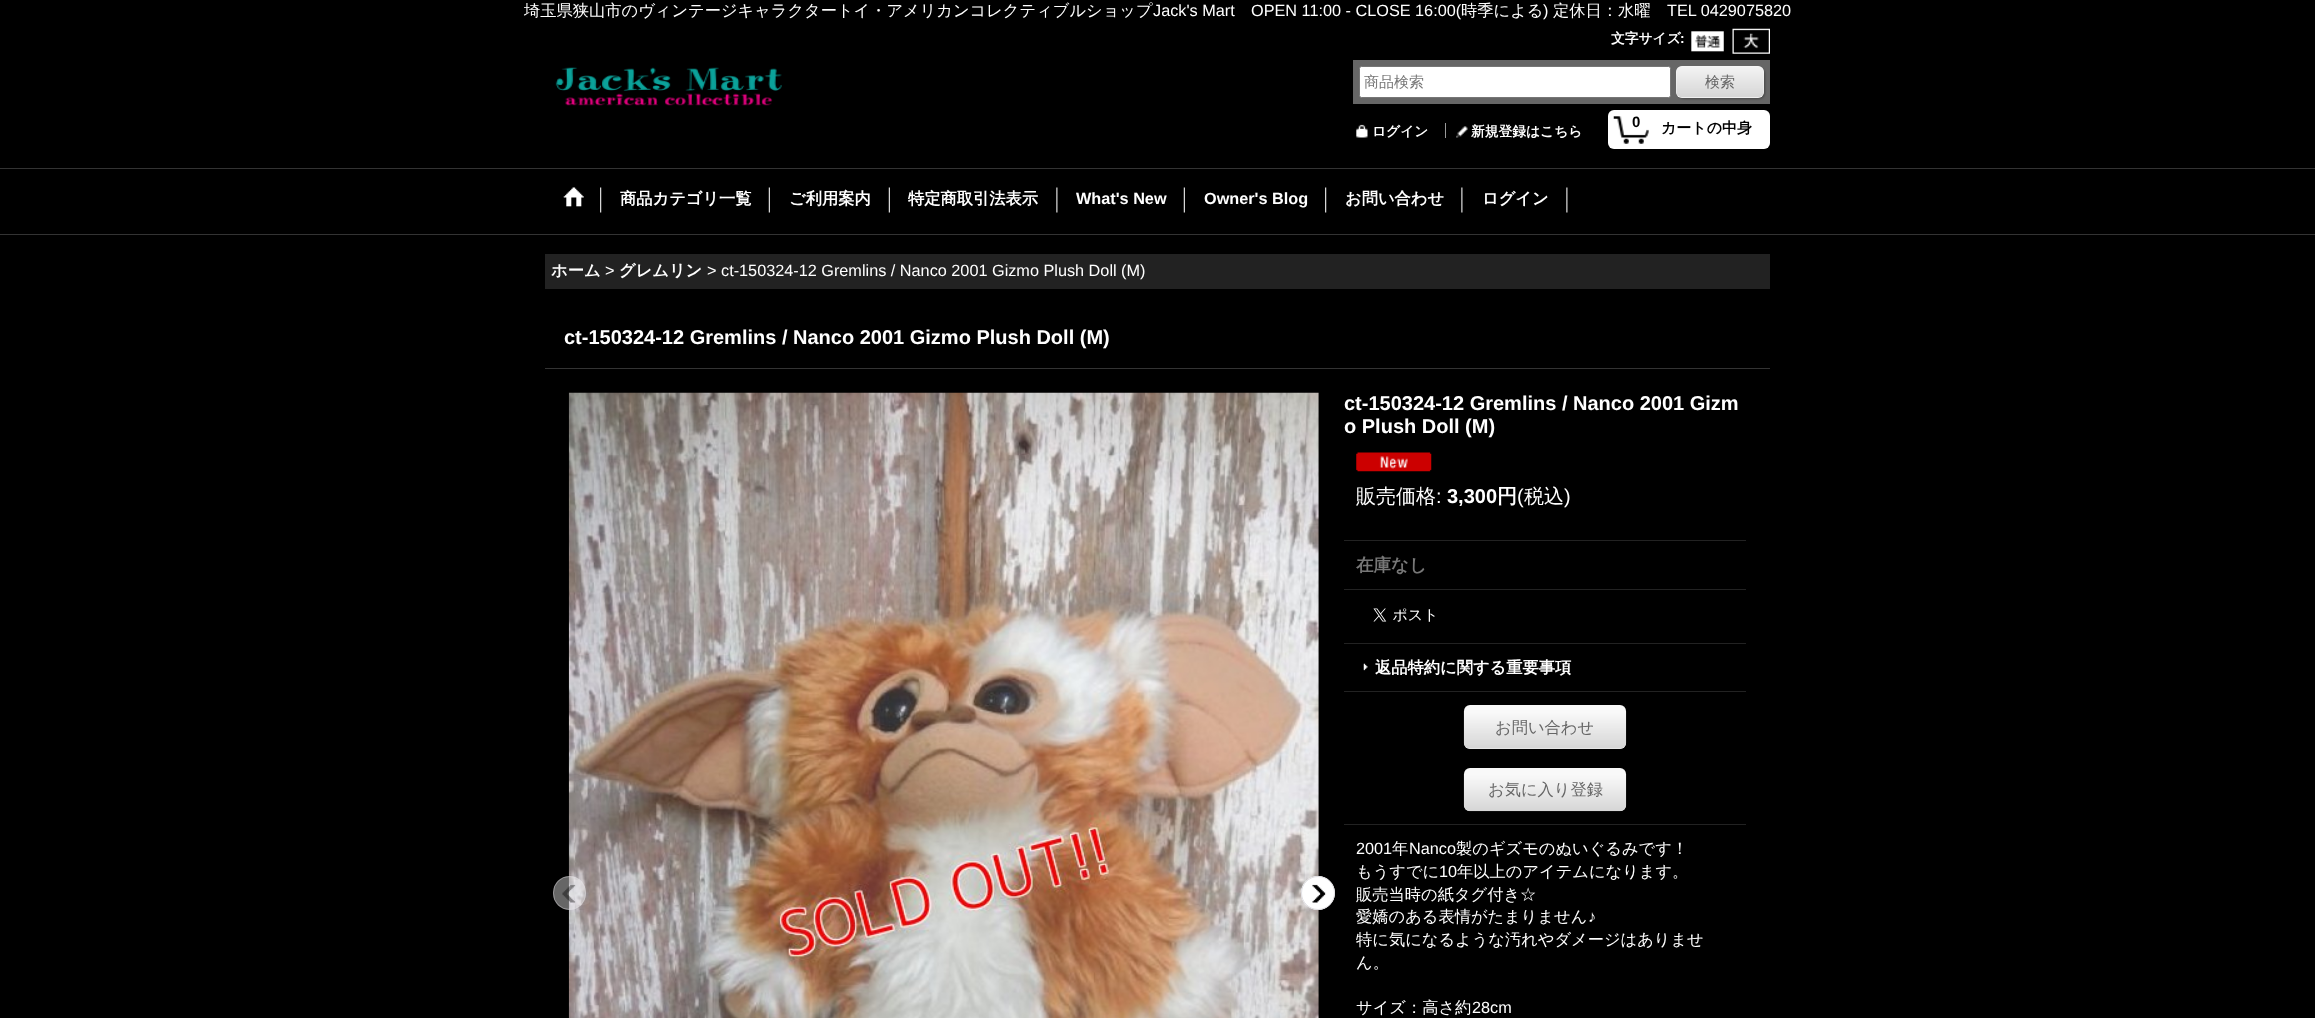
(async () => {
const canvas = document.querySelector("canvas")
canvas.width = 2315
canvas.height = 1018
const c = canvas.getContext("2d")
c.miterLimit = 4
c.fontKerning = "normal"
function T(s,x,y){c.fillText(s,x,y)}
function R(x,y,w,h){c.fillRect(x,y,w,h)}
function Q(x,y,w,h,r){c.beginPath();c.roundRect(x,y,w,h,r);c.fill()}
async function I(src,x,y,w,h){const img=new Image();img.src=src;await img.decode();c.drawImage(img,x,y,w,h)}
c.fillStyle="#000"
R(0,0,2315,1018)
c.font="500 16.25px WenQuanYi Zen Hei"
c.fillStyle="#fff"
T("埼玉県狭山市のヴィンテージキャラクタートイ・アメリカンコレクティブルショップ",524,16)
c.font="16.25px Liberation Sans"
T("Jack's Mart",1153,16)
T("OPEN 11:00 - CLOSE 16:00(",1251,16)
c.font="500 16.25px WenQuanYi Zen Hei"
T("時季による",1461,16)
c.font="16.25px Liberation Sans"
T(")",1543,16)
c.font="500 16.25px WenQuanYi Zen Hei"
T("定休日：水曜",1553,16)
c.font="16.25px Liberation Sans"
T("TEL 0429075820",1667,16)
c.font="bold 13.75px WenQuanYi Zen Hei"
T("文字サイズ",1611,43)
c.font="bold 13.75px Liberation Sans"
T(":",1680,43)
await I("1.png",1691,31,33,21)
await I("2.png",1732,28,38,26)
await I("3.png",555,67,227,39)
c.fillStyle="#666"
R(1353,60,417,44)
c.fillStyle="#fff"
c.beginPath()
c.roundRect(1359.5,66.5,311,31,2)
c.fill()
c.strokeStyle="#767676"
c.stroke()
c.font="500 15px WenQuanYi Zen Hei"
c.fillStyle="#777"
T("商品検索",1364,87)
c.fillStyle="#0000004d"
c.filter="blur(1px)"
c.beginPath()
c.roundRect(1678,68,87,31,6)
c.fill()
c.filter="none"
c.fillStyle="#f9f9f9"
Q(1676,66,88,32,6)
await I("4.png",1676,66,88,32)
c.fillStyle="#666"
T("検索",1705,87)
await I("5.png",1356,124,12,14)
c.font="bold 13.75px WenQuanYi Zen Hei"
c.fillStyle="#fff"
T("ログイン",1372,136)
c.fillStyle="#999"
R(1445,123,1,15)
await I("6.png",1456,126,12,12)
c.fillStyle="#fff"
T("新規登録はこちら",1471,136)
Q(1608,110,162,39,6)
await I("7.png",1613,116,36,28)
c.font="bold 15px Liberation Sans"
c.fillStyle="#000"
T("0",1632,127)
c.font="bold 15px WenQuanYi Zen Hei"
T("カートの中身",1661,133)
c.fillStyle="#333"
R(0,168,2315,1)
R(0,234,2315,1)
await I("8.png",600,187,2,26)
await I("9.png",563,187,21,20)
await I("10.png",768,187,2,26)
c.font="bold 16.25px WenQuanYi Zen Hei"
c.fillStyle="#fff"
T("商品カテゴリ一覧",620,204)
await I("10.png",888,187,2,26)
T("ご利用案内",789,204)
await I("11.png",1056,187,2,26)
T("特定商取引法表示",908,204)
await I("10.png",1183,187,2,26)
c.font="bold 16.25px Liberation Sans"
T("What's New",1076,204)
await I("8.png",1325,187,2,26)
T("Owner's Blog",1204,204)
await I("11.png",1461,187,2,26)
c.font="bold 16.25px WenQuanYi Zen Hei"
T("お問い合わせ",1345,204)
await I("11.png",1566,187,2,26)
T("ログイン",1482,204)
c.fillStyle="#222"
R(545,254,1225,35)
c.fillStyle="#fff"
T("ホーム",551,276)
c.font="16.25px Liberation Sans"
T(">",605,276)
c.font="bold 16.25px WenQuanYi Zen Hei"
T("グレムリン",619,276)
c.font="16.25px Liberation Sans"
T("> ct-150324-12 Gremlins / Nanco 2001 Gizmo Plush Doll (M)",707,276)
c.fillStyle="#333"
R(545,368,1225,1)
c.font="bold 20px Liberation Sans"
c.fillStyle="#fff"
T("ct-150324-12 Gremlins / Nanco 2001 Gizmo Plush Doll (M)",564,344)
await I("12.png",568,392,751,626)
c.fillStyle="#ffffff66"
Q(553,876,33,34,16.5)
await I("13.png",562,884,14,19)
c.beginPath()
c.roundRect(553.5,876.5,32,33,16)
c.strokeStyle="#e0dfe366"
c.stroke()
c.fillStyle="#fff"
c.beginPath()
c.arc(1318,893,17,0,7)
c.fill()
await I("14.png",1312,884,14,19)
c.beginPath()
c.arc(1318,893,16.5,0,7)
c.strokeStyle="#e0dfe3"
c.stroke()
T("ct-150324-12 Gremlins / Nanco 2001 Gizm",1344,410)
T("o Plush Doll (M)",1344,433)
await I("15.png",1356,452,76,20)
c.fillStyle="#222"
R(1344,540,402,1)
c.font="500 20px WenQuanYi Zen Hei"
c.fillStyle="#fff"
T("販売価格",1356,503)
c.font="20px Liberation Sans"
T(":",1436,503)
c.font="bold 20px Liberation Sans"
T("3,300",1447,503)
c.font="bold 20px WenQuanYi Zen Hei"
T("円",1497,503)
c.font="20px Liberation Sans"
T("(",1517,503)
c.font="500 20px WenQuanYi Zen Hei"
T("税込",1524,503)
c.font="20px Liberation Sans"
T(")",1564,503)
c.fillStyle="#222"
R(1344,589,402,1)
c.font="bold 17.5px WenQuanYi Zen Hei"
c.fillStyle="#777"
T("在庫なし",1356,571)
c.fillStyle="#222"
R(1344,643,402,1)
await I("16.png",1373,608,62,14)
R(1344,691,402,1)
await I("17.png",1363,663,5,8)
c.font="bold 16.25px WenQuanYi Zen Hei"
c.fillStyle="#fff"
T("返品特約に関する重要事項",1375,673)
c.fillStyle="#222"
R(1344,824,402,1)
c.fillStyle="#f9f9f9"
Q(1464,705,162,44,6)
await I("18.png",1463,711,164,38)
c.font="500 16.25px WenQuanYi Zen Hei"
c.fillStyle="#666"
T("お問い合わせ",1495,733)
c.fillStyle="#f9f9f9"
Q(1464,768,162,43,6)
await I("19.png",1463,774,164,38)
c.fillStyle="#666"
T("お気に入り登録",1488,795)
c.font="16.25px Liberation Sans"
c.fillStyle="#fff"
T("2001",1356,854)
c.font="500 16.25px WenQuanYi Zen Hei"
T("年",1392,854)
c.font="16.25px Liberation Sans"
T("Nanco",1409,854)
c.font="500 16.25px WenQuanYi Zen Hei"
T("製のギズモのぬいぐるみです！",1456,854)
T("もうすでに",1356,877)
c.font="16.25px Liberation Sans"
T("10",1439,877)
c.font="500 16.25px WenQuanYi Zen Hei"
T("年以上のアイテムになります。",1457,877)
T("販売当時の紙タグ付き☆",1356,900)
T("愛嬌のある表情がたまりません",1356,922)
c.font="16.25px Liberation Sans"
T("♪",1588,922)
c.font="500 16.25px WenQuanYi Zen Hei"
T("特に気になるような汚れやダメージはありませ",1356,945)
T("ん。",1356,968)
T("サイズ：高さ約",1356,1013)
c.font="16.25px Liberation Sans"
T("28cm",1472,1013)
})()
